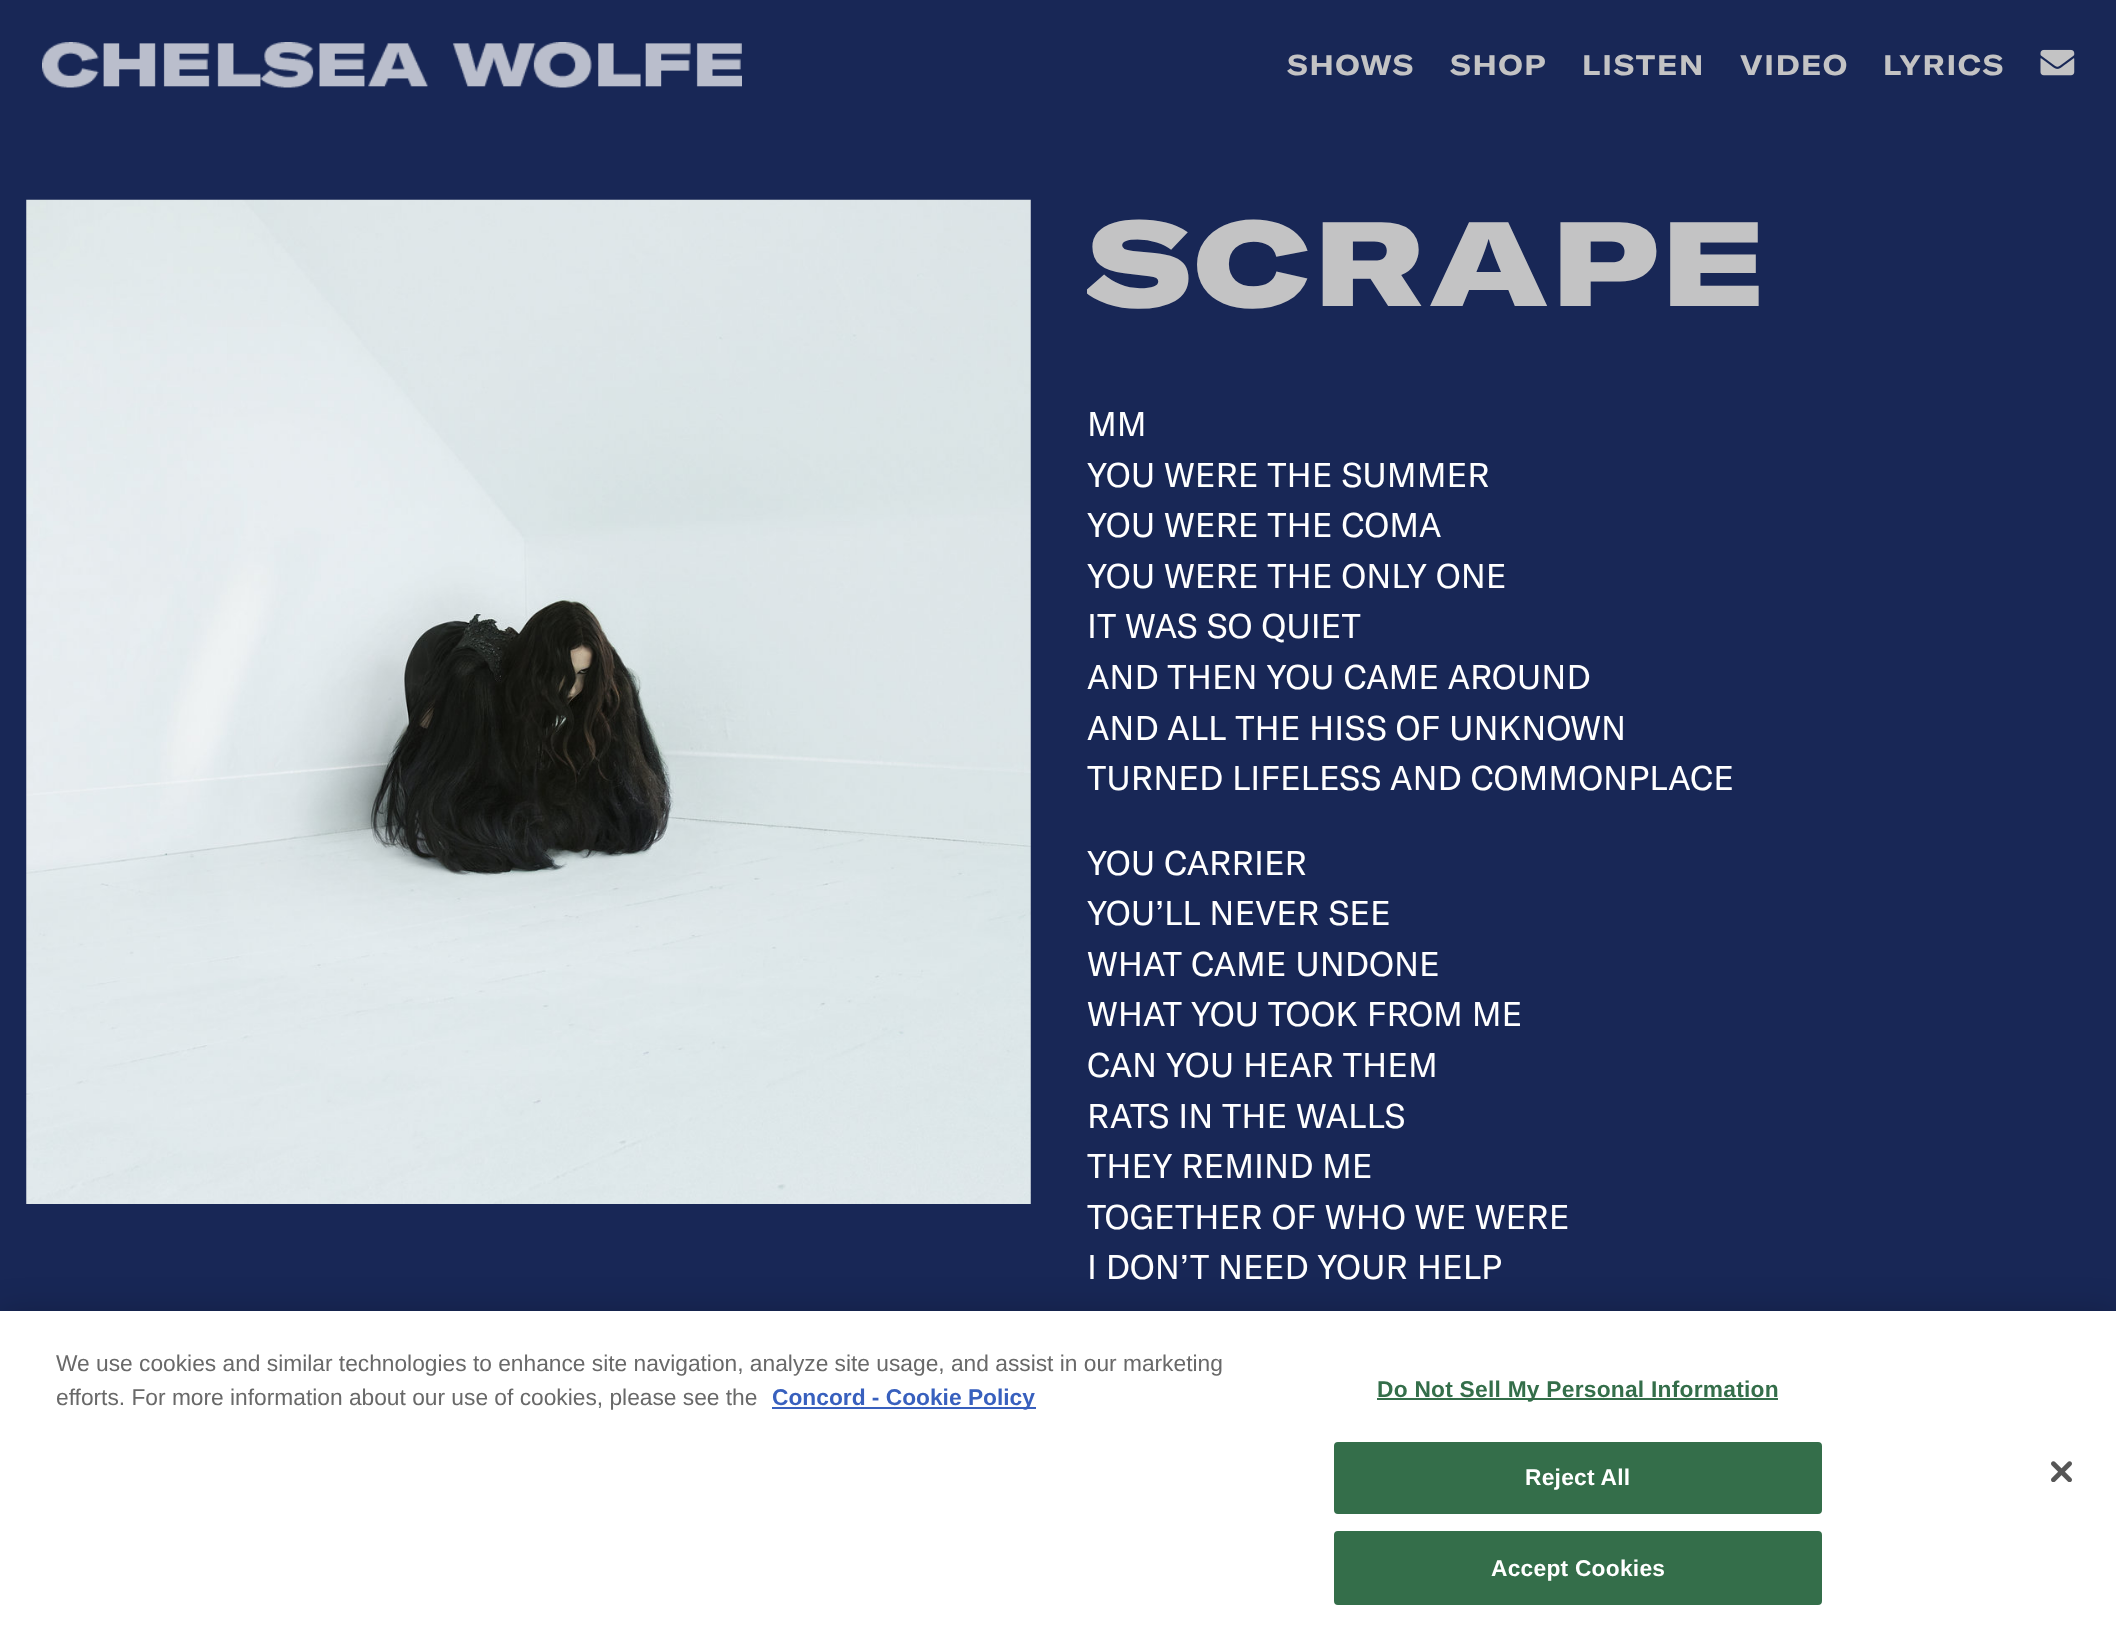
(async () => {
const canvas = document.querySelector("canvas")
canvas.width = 2116
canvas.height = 1639
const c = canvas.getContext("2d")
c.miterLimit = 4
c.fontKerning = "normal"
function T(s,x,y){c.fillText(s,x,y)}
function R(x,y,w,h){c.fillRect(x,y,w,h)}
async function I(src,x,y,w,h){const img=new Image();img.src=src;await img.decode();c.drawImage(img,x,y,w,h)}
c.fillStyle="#182756"
R(0,0,2116,1639)
await I("1.png",42,42,700,46)
c.letterSpacing="1.75px"
c.font="bold 28px GT America"
c.fillStyle="#c3c3c4"
T("SHOWS",1287,75)
T("SHOP",1450,75)
T("LISTEN",1582,75)
T("VIDEO",1740,75)
T("LYRICS",1883,75)
await I("2.png",2040,49,35,27)
await I("3.png",26,199,1005,1005)
c.save()
c.beginPath()
c.rect(1087,200,1004,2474)
c.clip()
c.letterSpacing="3.5px"
c.font="900 118px GT America"
T("SCRAPE",1087,306)
c.restore()
c.letterSpacing="0px"
c.font="33.75px GT America"
c.fillStyle="#fff"
T("MM",1087,436)
T("YOU WERE THE SUMMER",1087,487)
T("YOU WERE THE COMA",1087,537)
T("YOU WERE THE ONLY ONE",1087,588)
T("IT WAS SO QUIET",1087,638)
T("AND THEN YOU CAME AROUND",1087,689)
T("AND ALL THE HISS OF UNKNOWN",1087,740)
T("TURNED LIFELESS AND COMMONPLACE",1087,790)
T("YOU CARRIER",1087,875)
T("YOU’LL NEVER SEE",1087,925)
T("WHAT CAME UNDONE",1087,976)
T("WHAT YOU TOOK FROM ME",1087,1026)
T("CAN YOU HEAR THEM",1087,1077)
T("RATS IN THE WALLS",1087,1128)
T("THEY REMIND ME",1087,1178)
T("TOGETHER OF WHO WE WERE",1087,1229)
T("I DON’T NEED YOUR HELP",1087,1279)
c.fillStyle="#00000033"
c.filter="blur(16px)"
c.beginPath()
c.rect(0,1311,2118,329)
c.fill()
c.filter="none"
c.fillStyle="#fff"
R(0,1311,2116,328)
c.font="22.75px Liberation Sans"
c.fillStyle="#696969"
T("We use cookies and similar technologies to enhance site navigation, analyze site usage, and assist in our marketing",56,1371)
T("efforts. For more information about our use of cookies, please see the",56,1405)
c.fillStyle="#3860be"
R(772,1407,264,2)
c.font="bold 22.75px Liberation Sans"
T("Concord - Cookie Policy",772,1405)
c.fillStyle="#346e4a"
R(1377,1398,401,2)
c.letterSpacing="0.25px"
T("Do Not Sell My Personal Information",1377,1397)
c.beginPath()
c.roundRect(1335,1443,486,70,3)
c.fill()
c.strokeStyle="#346e4a"
c.lineWidth=2
c.stroke()
c.fillStyle="#fff"
T("Reject All",1525,1485)
c.fillStyle="#346e4a"
c.beginPath()
c.roundRect(1335,1532,486,72,3)
c.fill()
c.stroke()
c.fillStyle="#fff"
T("Accept Cookies",1491,1576)
await I("4.png",2051,1461,21,21)
})()
